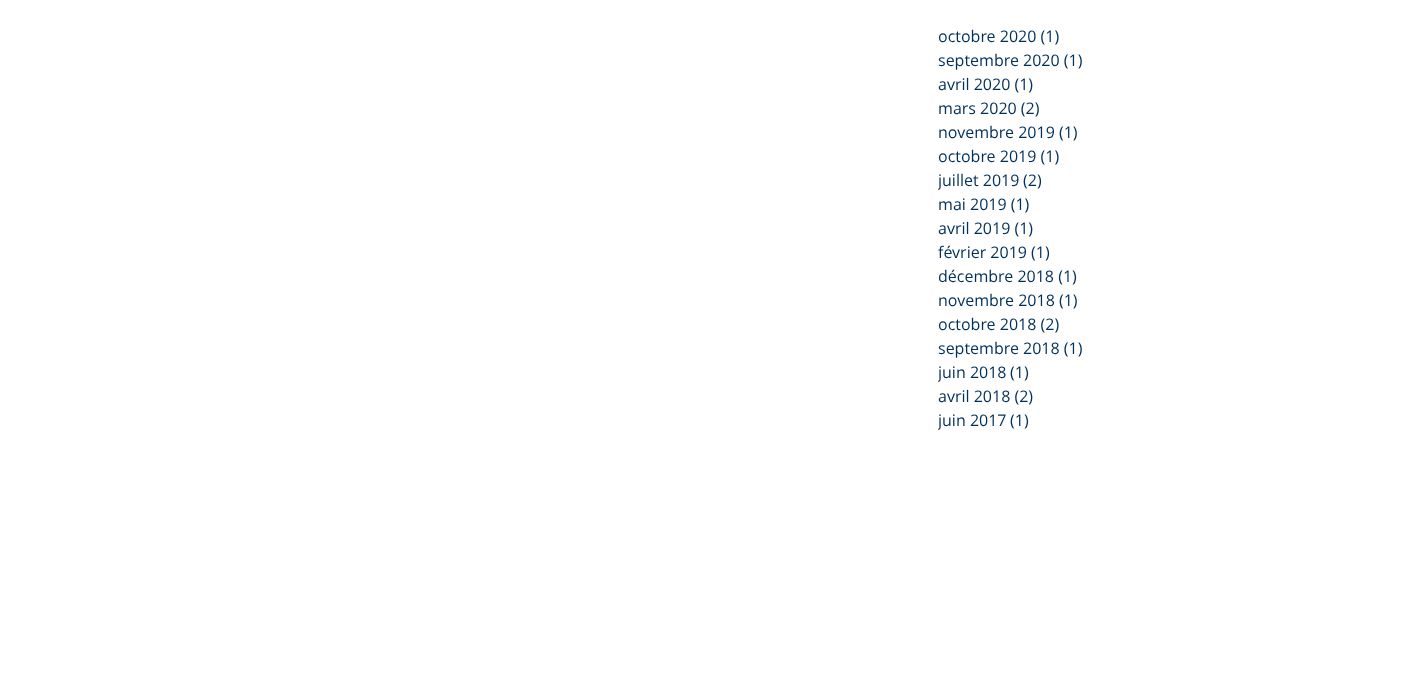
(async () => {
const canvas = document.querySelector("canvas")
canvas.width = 1403
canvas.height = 673
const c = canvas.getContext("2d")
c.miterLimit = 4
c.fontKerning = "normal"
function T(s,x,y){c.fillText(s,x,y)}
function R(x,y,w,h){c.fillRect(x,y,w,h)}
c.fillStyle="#fff"
R(0,0,1403,673)
c.font="16px Open Sans"
c.fillStyle="#00305b"
T("octobre 2020 (1)",938,42)
T("septembre 2020 (1)",938,66)
T("avril 2020 (1)",938,90)
T("mars 2020 (2)",938,114)
T("novembre 2019 (1)",938,138)
T("octobre 2019 (1)",938,162)
c.save()
c.beginPath()
c.rect(938,168,104,24)
c.clip()
T("juillet 2019",938,186)
c.restore()
T("(2)",1023,186)
T("mai 2019 (1)",938,210)
T("avril 2019 (1)",938,234)
T("février 2019 (1)",938,258)
T("décembre 2018 (1)",938,282)
T("novembre 2018 (1)",938,306)
T("octobre 2018 (2)",938,330)
T("septembre 2018 (1)",938,354)
c.save()
c.beginPath()
c.rect(938,360,91,24)
c.clip()
T("juin 2018",938,378)
c.restore()
T("(1)",1010,378)
T("avril 2018 (2)",938,402)
c.save()
c.beginPath()
c.rect(938,408,91,24)
c.clip()
T("juin 2017",938,426)
c.restore()
T("(1)",1010,426)
})()
